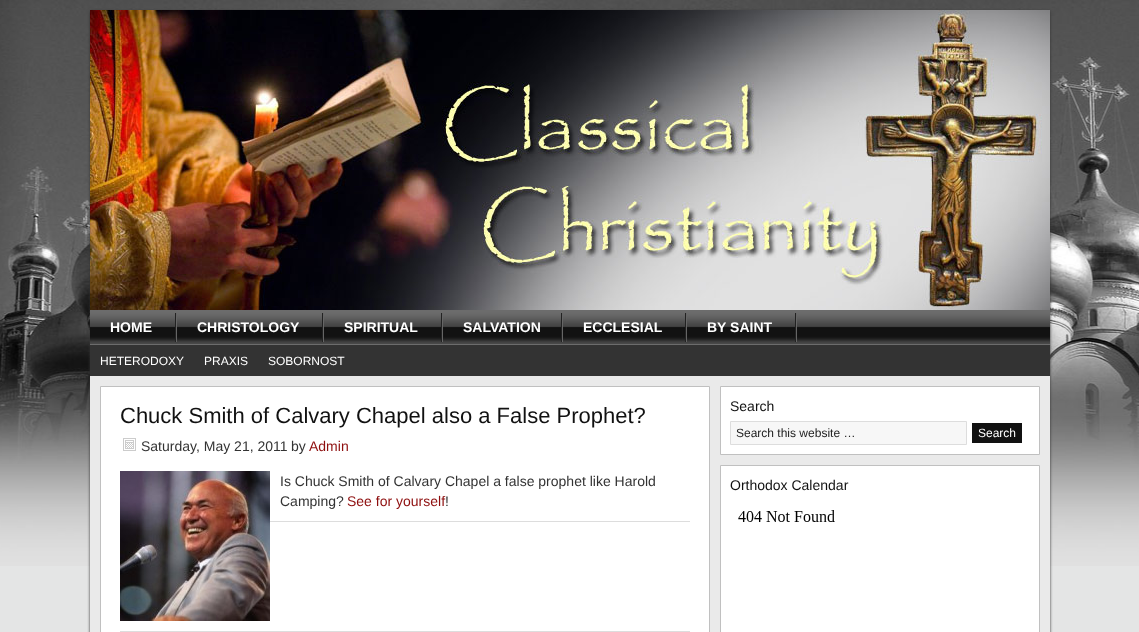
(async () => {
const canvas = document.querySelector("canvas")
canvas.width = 1139
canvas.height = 632
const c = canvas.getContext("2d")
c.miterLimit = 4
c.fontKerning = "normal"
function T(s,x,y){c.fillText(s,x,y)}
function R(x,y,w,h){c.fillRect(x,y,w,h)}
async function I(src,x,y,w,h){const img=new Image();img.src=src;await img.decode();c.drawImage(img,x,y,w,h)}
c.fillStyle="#e4e5e5"
R(0,0,1139,632)
await I("1.png",0,0,1139,566)
c.fillStyle="#333"
c.filter="blur(1.5px)"
c.beginPath()
c.rect(90,11,960,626)
c.fill()
c.filter="none"
c.fillStyle="#eaeaea"
R(90,376,960,256)
await I("2.png",90,10,960,300)
await I("3.png",90,310,960,35)
await I("4.png",175,313,2,29)
c.font="bold 14px Liberation Sans"
c.fillStyle="#fff"
T("HOME",110,332)
await I("4.png",322,313,2,29)
T("CHRISTOLOGY",197,332)
await I("4.png",441,313,2,29)
T("SPIRITUAL",344,332)
await I("4.png",561,313,2,29)
T("SALVATION",463,332)
await I("4.png",685,313,2,29)
T("ECCLESIAL",583,332)
await I("4.png",795,313,2,29)
T("BY SAINT",707,332)
c.fillStyle="#333"
R(90,345,960,31)
c.font="12px Liberation Sans"
c.fillStyle="#fff"
T("HETERODOXY",100,365)
T("PRAXIS",204,365)
T("SOBORNOST",268,365)
c.beginPath()
c.rect(100.5,386.5,609,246)
c.fill()
c.strokeStyle="#c0c0c0"
c.stroke()
c.font="22px Liberation Sans"
c.fillStyle="#111"
T("Chuck Smith of Calvary Chapel also a False Prophet?",120,423)
await I("5.png",123,438,13,13)
c.font="14px Liberation Sans"
c.fillStyle="#333"
T("Saturday, May 21, 2011",141,451)
T("by",291,451)
c.fillStyle="#8e0e0e"
T("Admin",309,451)
await I("6.png",120,471,150,150)
c.fillStyle="#333"
T("Is Chuck Smith of Calvary Chapel a false prophet like Harold",280,486)
T("Camping?",280,506)
c.fillStyle="#8e0e0e"
T("See for yourself",347,506)
c.fillStyle="#333"
T("!",445,506)
c.fillStyle="#ddd"
R(270,521,420,1)
R(120,631,570,1)
c.fillStyle="#fff"
c.beginPath()
c.rect(720.5,386.5,319,68)
c.fill()
c.stroke()
c.fillStyle="#111"
T("Search",730,411)
c.fillStyle="#f7f7f7"
c.beginPath()
c.rect(730.5,421.5,236,23)
c.fill()
c.strokeStyle="#ddd"
c.stroke()
c.font="12px Liberation Sans"
c.fillStyle="#222"
T("Search this website …",736,437)
c.fillStyle="#111"
R(972,423,50,20)
c.fillStyle="#fff"
T("Search",978,437)
c.beginPath()
c.rect(720.5,465.5,319,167)
c.fill()
c.strokeStyle="#c0c0c0"
c.stroke()
c.font="14px Liberation Sans"
c.fillStyle="#111"
T("Orthodox Calendar",730,490)
await I("7.png",738,510,97,12)
})()
